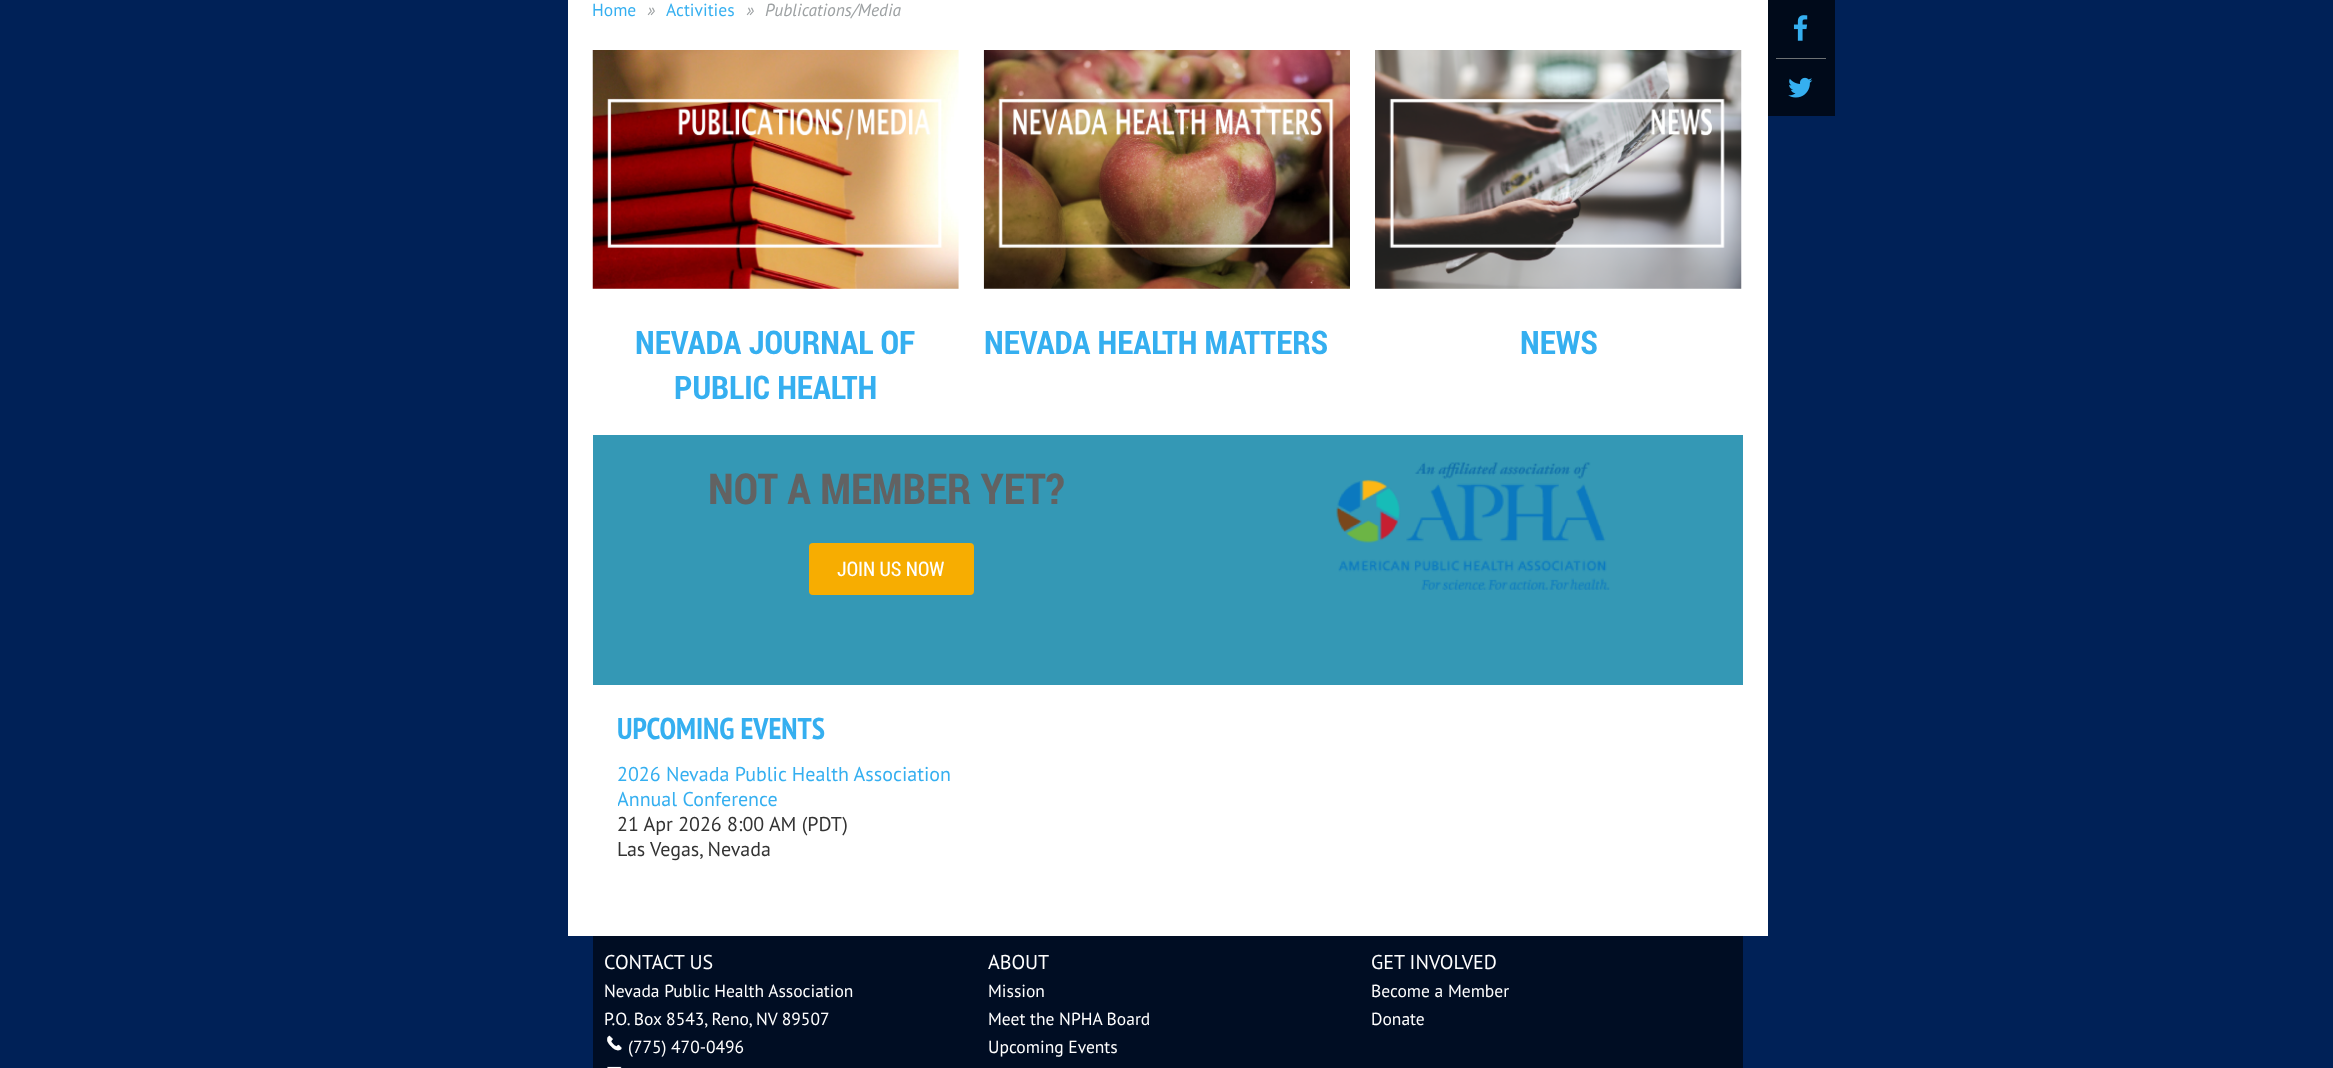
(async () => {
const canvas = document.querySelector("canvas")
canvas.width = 2333
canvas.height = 1068
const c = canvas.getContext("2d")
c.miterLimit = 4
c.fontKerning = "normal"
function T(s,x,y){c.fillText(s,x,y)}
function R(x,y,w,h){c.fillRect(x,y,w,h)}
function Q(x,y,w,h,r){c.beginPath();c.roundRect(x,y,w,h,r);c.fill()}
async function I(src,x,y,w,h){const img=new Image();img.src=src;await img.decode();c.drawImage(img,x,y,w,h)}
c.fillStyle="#002157"
R(0,0,2333,1068)
c.fillStyle="#fff"
R(568,0,1200,936)
c.font="17.5px PT Sans"
c.fillStyle="#35aff0"
T("Home",592,16)
c.font="italic 17.5px PT Sans"
c.fillStyle="#9da1a3"
T("»",647,16)
c.font="17.5px PT Sans"
c.fillStyle="#35aff0"
T("Activities",666,16)
c.font="italic 17.5px PT Sans"
c.fillStyle="#9da1a3"
T("»",746,16)
T("Publications/Media",765,16)
await I("1.png",592,50,367,239)
c.font="bold 32.5px Roboto Condensed"
c.fillStyle="#35aff0"
T("NEVADA JOURNAL OF",635,354)
T("PUBLIC HEALTH",674,399)
await I("2.png",983,50,367,239)
T("NEVADA HEALTH MATTERS",984,354)
await I("3.png",1375,50,367,239)
T("NEWS",1520,354)
c.fillStyle="#3498b5"
R(593,435,1150,250)
c.font="bold 42.5px Roboto Condensed"
c.fillStyle="#626262"
T("NOT A MEMBER YET?",708,504)
c.fillStyle="#f7ad01"
Q(809,543,165,52,4)
c.font="20px Roboto Condensed"
c.fillStyle="#fff"
T("JOIN US NOW",837,576)
await I("4.png",1336,462,274,128)
c.font="bold 30px PT Sans Narrow"
c.fillStyle="#35aff0"
T("UPCOMING EVENTS",617,739)
c.font="20px PT Sans"
T("2026 Nevada Public Health Association",617,781)
c.save()
c.beginPath()
c.rect(618,710,357,151)
c.clip()
T("Annual Conference",617,806)
c.restore()
c.fillStyle="#333"
T("21 Apr 2026 8:00 AM (PDT)",617,831)
T("Las Vegas, Nevada",617,856)
c.fillStyle="#000a1a"
R(1768,0,67,116)
c.fillStyle="#6d7173"
R(1776,58,50,1)
await I("5.png",1793,15,15,26)
await I("6.png",1788,77,25,21)
c.fillStyle="#000d23"
R(593,936,1150,132)
c.fillStyle="#fff"
T("CONTACT US",604,969)
c.font="17.5px PT Sans"
T("Nevada Public Health Association",604,997)
T("P.O. Box 8543, Reno, NV 89507",604,1025)
await I("7.png",607,1035,15,16)
T("(775) 470-0496",628,1053)
await I("8.png",607,1066,15,2)
c.font="20px PT Sans"
T("ABOUT",988,969)
c.font="17.5px PT Sans"
T("Mission",988,997)
T("Meet the NPHA Board",988,1025)
T("Upcoming Events",988,1053)
c.font="20px PT Sans"
T("GET INVOLVED",1371,969)
c.font="17.5px PT Sans"
T("Become a Member",1371,997)
T("Donate",1371,1025)
})()
